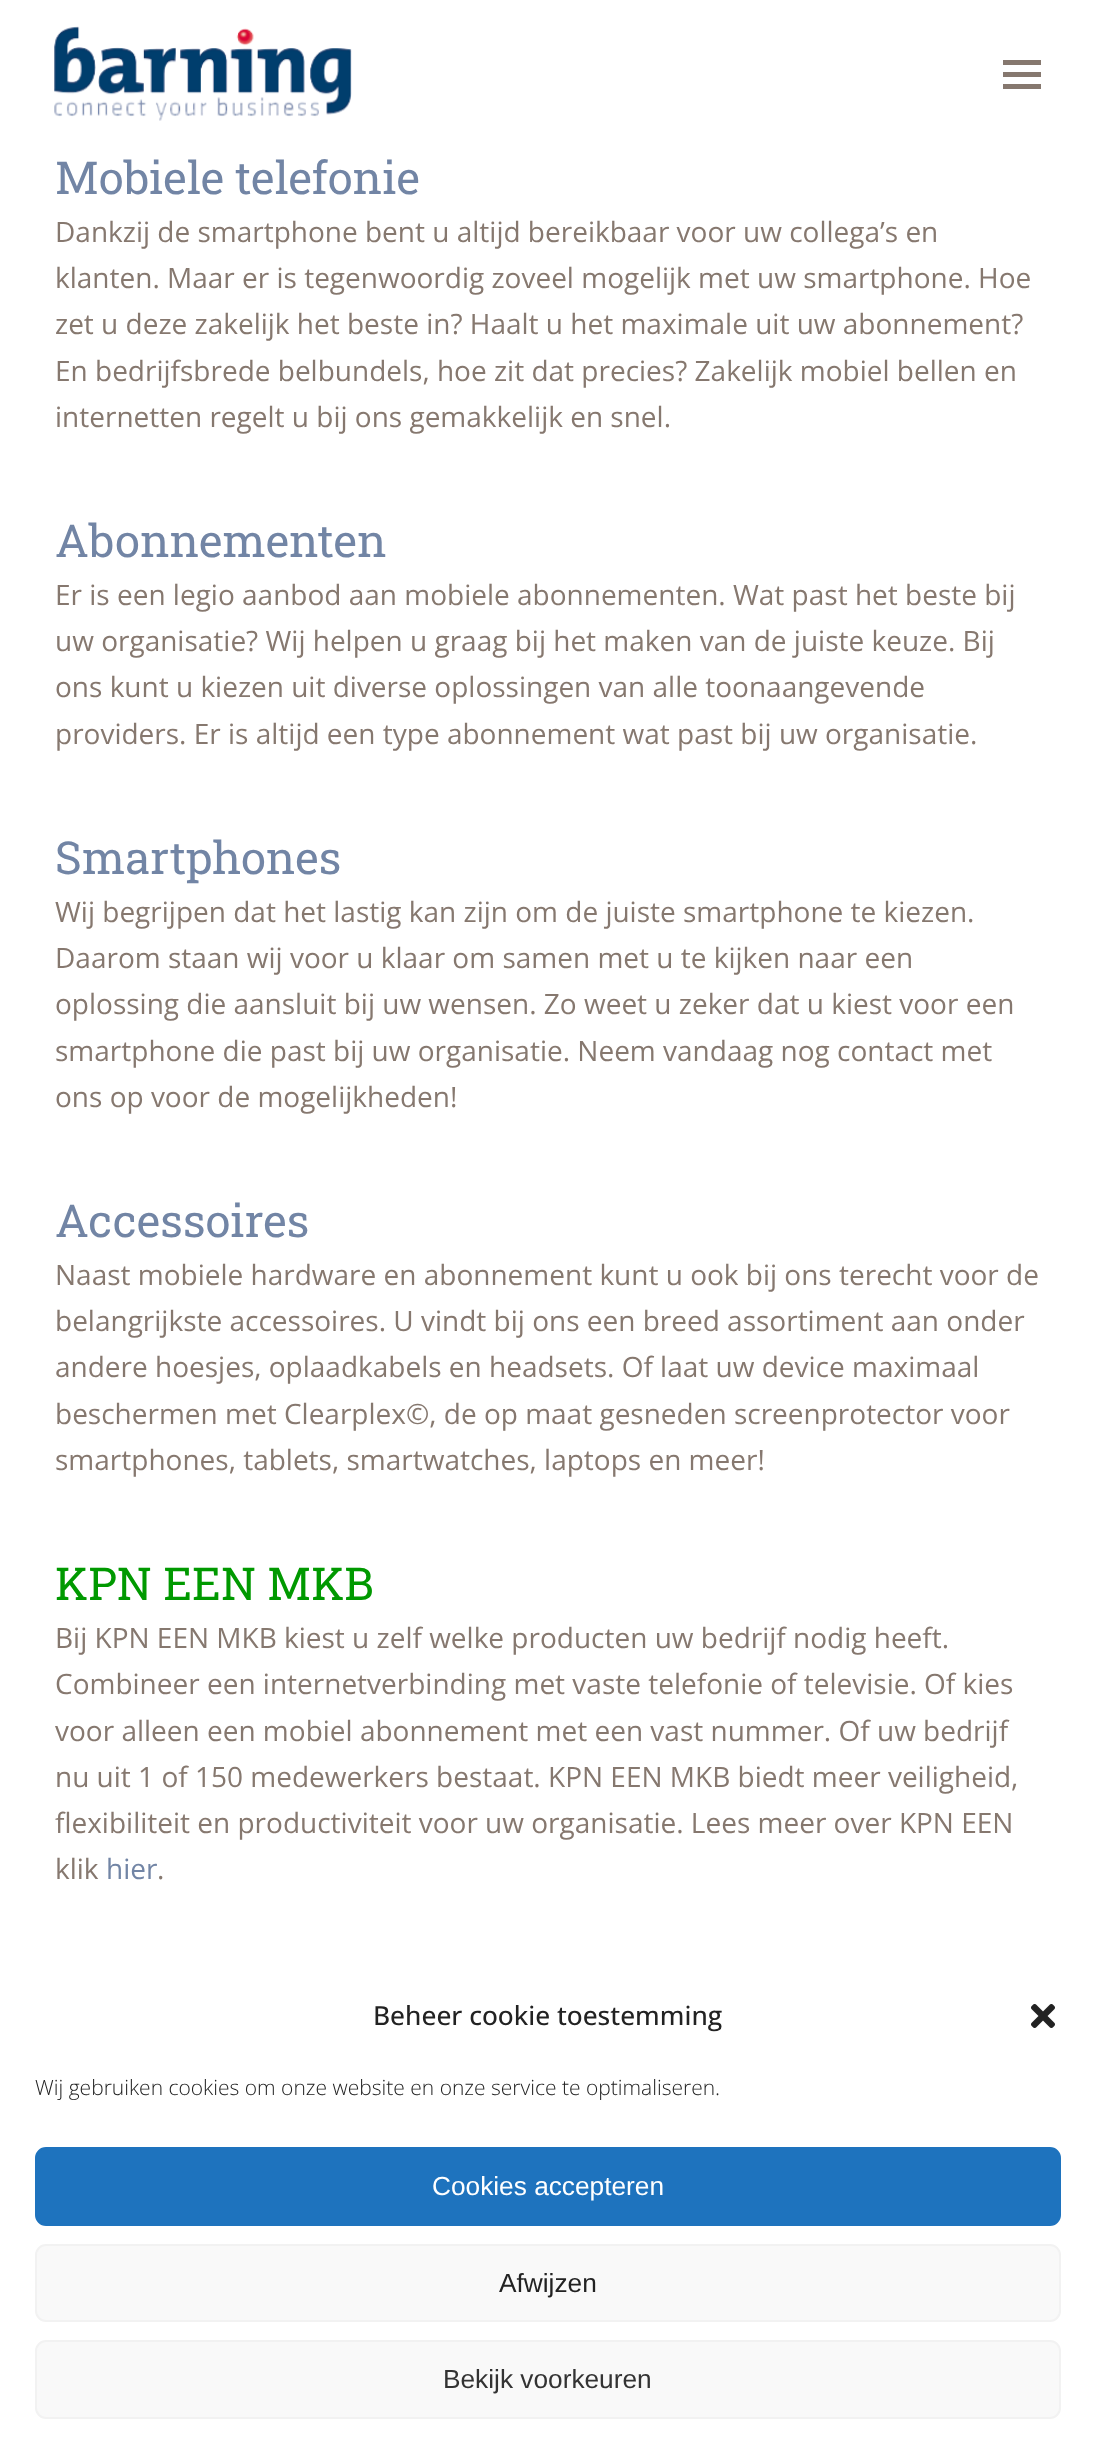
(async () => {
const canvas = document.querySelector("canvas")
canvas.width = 1095
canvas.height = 2462
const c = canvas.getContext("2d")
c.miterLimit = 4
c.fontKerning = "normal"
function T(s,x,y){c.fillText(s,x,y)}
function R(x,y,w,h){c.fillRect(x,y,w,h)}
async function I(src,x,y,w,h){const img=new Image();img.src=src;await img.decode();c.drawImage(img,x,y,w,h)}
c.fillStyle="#fff"
R(0,0,1095,2462)
await I("1.png",54,26,298,95)
c.fillStyle="#86786f"
R(1003,72,38,5)
R(1003,60,38,5)
R(1003,84,38,5)
c.font="45.25px Roboto Slab"
c.fillStyle="#7285a5"
T("Mobiele telefonie",55,194)
c.font="28px Open Sans"
c.fillStyle="#86786f"
T("Dankzij de smartphone bent u altijd bereikbaar voor uw collega’s en",55,242)
T("klanten. Maar er is tegenwoordig zoveel mogelijk met uw smartphone. Hoe",55,288)
T("zet u deze zakelijk het beste in? Haalt u het maximale uit uw abonnement?",55,334)
T("En bedrijfsbrede belbundels, hoe zit dat precies? Zakelijk mobiel bellen en",55,381)
T("internetten regelt u bij ons gemakkelijk en snel.",55,427)
c.font="45.25px Roboto Slab"
c.fillStyle="#7285a5"
T("Abonnementen",55,557)
c.font="28px Open Sans"
c.fillStyle="#86786f"
T("Er is een legio aanbod aan mobiele abonnementen. Wat past het beste bij",55,605)
T("uw organisatie? Wij helpen u graag bij het maken van de juiste keuze. Bij",55,651)
T("ons kunt u kiezen uit diverse oplossingen van alle toonaangevende",55,697)
T("providers. Er is altijd een type abonnement wat past bij uw organisatie.",55,744)
c.font="45.25px Roboto Slab"
c.fillStyle="#7285a5"
T("Smartphones",55,874)
c.font="28px Open Sans"
c.fillStyle="#86786f"
T("Wij begrijpen dat het lastig kan zijn om de juiste smartphone te kiezen.",55,922)
T("Daarom staan wij voor u klaar om samen met u te kijken naar een",55,968)
T("oplossing die aansluit bij uw wensen. Zo weet u zeker dat u kiest voor een",55,1014)
T("smartphone die past bij uw organisatie. Neem vandaag nog contact met",55,1061)
T("ons op voor de mogelijkheden!",55,1107)
c.font="45.25px Roboto Slab"
c.fillStyle="#7285a5"
T("Accessoires",55,1237)
c.font="28px Open Sans"
c.fillStyle="#86786f"
T("Naast mobiele hardware en abonnement kunt u ook bij ons terecht voor de",55,1285)
T("belangrijkste accessoires. U vindt bij ons een breed assortiment aan onder",55,1331)
T("andere hoesjes, oplaadkabels en headsets. Of laat uw device maximaal",55,1377)
T("beschermen met Clearplex©, de op maat gesneden screenprotector voor",55,1424)
T("smartphones, tablets, smartwatches, laptops en meer!",55,1470)
c.font="45.25px Roboto Slab"
c.fillStyle="#090"
T("KPN EEN MKB",55,1600)
c.font="28px Open Sans"
c.fillStyle="#86786f"
T("Bij KPN EEN MKB kiest u zelf welke producten uw bedrijf nodig heeft.",55,1648)
T("Combineer een internetverbinding met vaste telefonie of televisie. Of kies",55,1694)
T("voor alleen een mobiel abonnement met een vast nummer. Of uw bedrijf",55,1741)
T("nu uit 1 of 150 medewerkers bestaat. KPN EEN MKB biedt meer veiligheid,",55,1787)
T("flexibiliteit en productiviteit voor uw organisatie. Lees meer over KPN EEN",55,1833)
T("klik",55,1879)
c.fillStyle="#7285a5"
T("hier",106,1879)
c.fillStyle="#86786f"
T(".",157,1879)
c.font="500 26.25px Open Sans"
c.fillStyle="#222"
T("Beheer cookie toestemming",373,2025)
await I("2.png",1031,2004,24,24)
c.font="300 21px Open Sans"
T("Wij gebruiken cookies om onze website en onze service te optimaliseren.",35,2095)
c.fillStyle="#1e73be"
c.beginPath()
c.roundRect(36,2148,1024,77,10)
c.fill()
c.strokeStyle="#1e73be"
c.lineWidth=2
c.stroke()
c.font="26.25px Liberation Sans"
c.fillStyle="#fff"
T("Cookies accepteren",432,2195)
c.fillStyle="#f9f9f9"
c.beginPath()
c.roundRect(36,2245,1024,76,10)
c.fill()
c.strokeStyle="#f2f2f2"
c.stroke()
c.fillStyle="#222"
T("Afwijzen",499,2292)
c.fillStyle="#f9f9f9"
c.beginPath()
c.roundRect(36,2341,1024,77,10)
c.fill()
c.stroke()
c.fillStyle="#333"
T("Bekijk voorkeuren",443,2388)
})()
